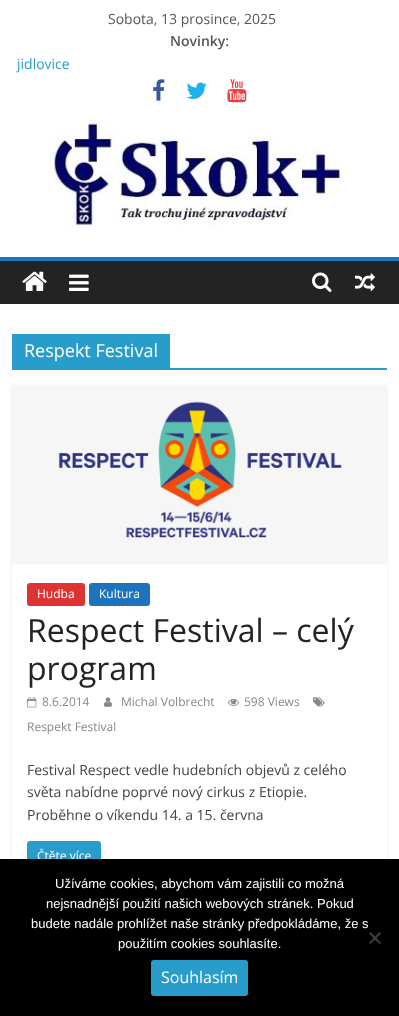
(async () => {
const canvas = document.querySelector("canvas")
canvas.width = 399
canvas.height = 1016
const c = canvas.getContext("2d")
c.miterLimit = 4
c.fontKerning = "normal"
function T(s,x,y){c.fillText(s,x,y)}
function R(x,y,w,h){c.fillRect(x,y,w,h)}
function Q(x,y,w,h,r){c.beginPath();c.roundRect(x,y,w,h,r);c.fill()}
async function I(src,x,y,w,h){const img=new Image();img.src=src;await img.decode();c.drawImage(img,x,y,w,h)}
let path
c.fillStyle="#fff"
R(0,0,399,1016)
c.font="14px Open Sans"
c.fillStyle="#555"
T("Sobota, 13 prosince, 2025",108,24)
c.font="600 14px Open Sans"
T("Novinky:",170,46)
c.font="14px Open Sans"
c.fillStyle="#289dcc"
T("jidlovice",17,69)
await I("1.png",153,79,12,22)
await I("2.png",186,82,21,17)
await I("3.png",227,79,20,24)
await I("4.png",49,120,296,112)
c.fillStyle="#232323"
R(0,261,399,43)
c.fillStyle="#1e73be"
R(0,257,399,4)
await I("5.png",22,271,25,20)
await I("6.png",69,274,20,17)
await I("7.png",312,272,20,20)
await I("8.png",355,273,20,18)
c.fillStyle="#289dcc"
R(12,368,375,2)
R(12,334,158,34)
c.font="18px Open Sans"
c.fillStyle="#fff"
T("Respekt Festival",24,357)
c.save()
path = new Path2D("M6 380h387v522h-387zm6 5h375v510h-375z")
c.clip(path,"evenodd")
c.fillStyle="#0000001a"
c.filter="blur(1.5px)"
c.beginPath()
c.rect(12,386,375,510)
c.fill()
c.filter="none"
c.restore()
await I("9.png",12,385,375,180)
c.fillStyle="#d33"
Q(27,583,58,23,3)
c.font="12px Open Sans"
c.fillStyle="#fff"
T("Hudba",37,598)
c.fillStyle="#1e73be"
Q(89,583,61,23,3)
c.fillStyle="#fff"
T("Kultura",99,598)
c.font="32px Open Sans"
c.fillStyle="#232323"
T("Respect Festival – celý",27,642)
T("program",27,680)
await I("10.png",27,697,10,11)
c.font="12px Open Sans"
c.fillStyle="#888"
T("8.6.2014",42,706)
await I("11.png",104,697,8,10)
T("Michal Volbrecht",121,706)
await I("12.png",228,698,11,8)
T("598 Views",244,706)
await I("13.png",313,697,12,10)
T("Respekt Festival",27,731)
c.font="14px Open Sans"
c.fillStyle="#444"
T("Festival Respect vedle hudebních objevů z celého",27,775)
T("světa nabídne poprvé nový cirkus z Etiopie.",27,797)
T("Proběhne o víkendu 14. a 15. června",27,820)
c.fillStyle="#289dcc"
Q(27,841,74,29,3)
c.font="12px Open Sans"
c.fillStyle="#fff"
T("Čtěte více",37,860)
c.fillStyle="#000"
R(0,859,399,157)
c.font="13px Liberation Sans"
c.fillStyle="#fff"
T("Užíváme cookies, abychom vám zajistili co možná",55,888)
T("nejsnadnější použití našich webových stránek. Pokud",46,908)
T("budete nadále prohlížet naše stránky předpokládáme, že s",31,928)
T("použitím cookies souhlasíte.",118,948)
c.fillStyle="#404040"
path = new Path2D("M379.5 932l1.5 1.5l-10.5 10.5l-1.5-1z")
c.fill(path)
path = new Path2D("M369 933.5l1.5-1.5l10.5 11l-1.5 1z")
c.fill(path)
c.fillStyle="#289dcc"
Q(151,960,97,36,3)
c.font="16px Open Sans"
c.fillStyle="#fff"
T("Souhlasím",161,983)
})()
